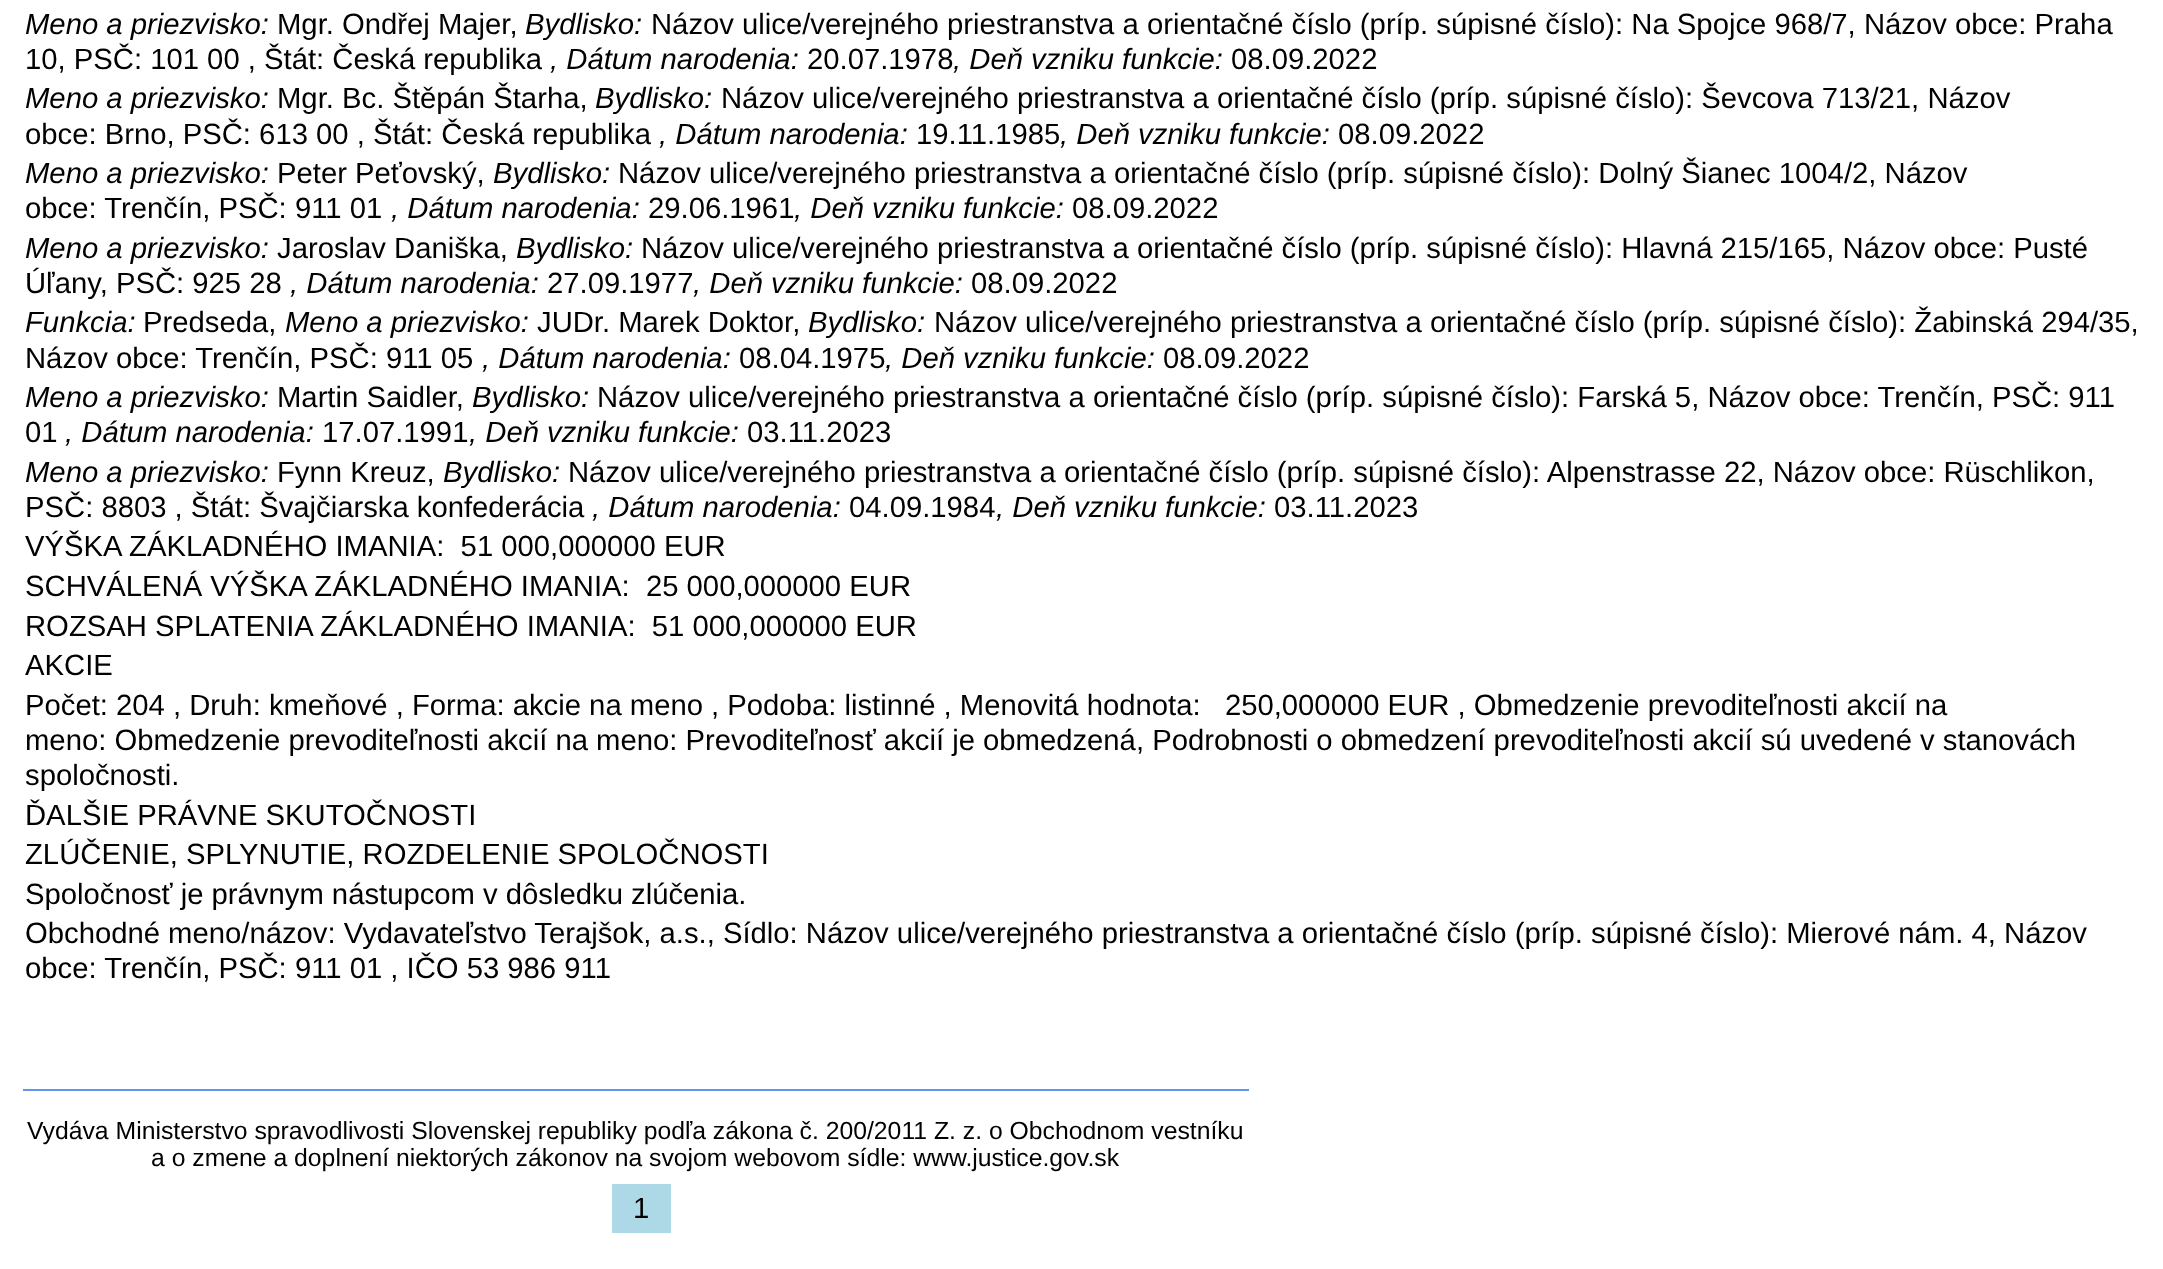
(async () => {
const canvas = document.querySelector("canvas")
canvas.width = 2163
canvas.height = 1269
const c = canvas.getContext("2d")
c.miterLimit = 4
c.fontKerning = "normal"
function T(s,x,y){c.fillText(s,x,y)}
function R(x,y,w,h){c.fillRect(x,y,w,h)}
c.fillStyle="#fff"
R(0,0,2163,1269)
c.font="italic 29.25px Liberation Sans"
c.fillStyle="#000"
T("Meno a priezvisko:",25,34)
c.font="29.25px Liberation Sans"
T("Mgr. Ondřej Majer,",277,34)
c.font="italic 29.25px Liberation Sans"
T("Bydlisko:",525,34)
c.font="29.25px Liberation Sans"
T("Názov ulice/verejného priestranstva a orientačné číslo (príp. súpisné číslo): Na Spojce 968/7, Názov obce: Praha",651,34)
T("10, PSČ: 101 00 , Štát: Česká republika",25,69)
c.font="italic 29.25px Liberation Sans"
T(", Dátum narodenia:",550,69)
c.font="29.25px Liberation Sans"
T("20.07.1978",807,69)
c.font="italic 29.25px Liberation Sans"
T(", Deň vzniku funkcie:",953,69)
c.font="29.25px Liberation Sans"
T("08.09.2022",1231,69)
c.font="italic 29.25px Liberation Sans"
T("Meno a priezvisko:",25,108)
c.font="29.25px Liberation Sans"
T("Mgr. Bc. Štěpán Štarha,",277,108)
c.font="italic 29.25px Liberation Sans"
T("Bydlisko:",595,108)
c.font="29.25px Liberation Sans"
T("Názov ulice/verejného priestranstva a orientačné číslo (príp. súpisné číslo): Ševcova 713/21, Názov",721,108)
T("obce: Brno, PSČ: 613 00 , Štát: Česká republika",25,144)
c.font="italic 29.25px Liberation Sans"
T(", Dátum narodenia:",659,144)
c.font="29.25px Liberation Sans"
T("19.11.1985",916,144)
c.font="italic 29.25px Liberation Sans"
T(", Deň vzniku funkcie:",1060,144)
c.font="29.25px Liberation Sans"
T("08.09.2022",1338,144)
c.font="italic 29.25px Liberation Sans"
T("Meno a priezvisko:",25,183)
c.font="29.25px Liberation Sans"
T("Peter Peťovský,",277,183)
c.font="italic 29.25px Liberation Sans"
T("Bydlisko:",493,183)
c.font="29.25px Liberation Sans"
T("Názov ulice/verejného priestranstva a orientačné číslo (príp. súpisné číslo): Dolný Šianec 1004/2, Názov",618,183)
T("obce: Trenčín, PSČ: 911 01",25,218)
c.font="italic 29.25px Liberation Sans"
T(", Dátum narodenia:",391,218)
c.font="29.25px Liberation Sans"
T("29.06.1961",648,218)
c.font="italic 29.25px Liberation Sans"
T(", Deň vzniku funkcie:",794,218)
c.font="29.25px Liberation Sans"
T("08.09.2022",1072,218)
c.font="italic 29.25px Liberation Sans"
T("Meno a priezvisko:",25,258)
c.font="29.25px Liberation Sans"
T("Jaroslav Daniška,",277,258)
c.font="italic 29.25px Liberation Sans"
T("Bydlisko:",516,258)
c.font="29.25px Liberation Sans"
T("Názov ulice/verejného priestranstva a orientačné číslo (príp. súpisné číslo): Hlavná 215/165, Názov obce: Pusté",641,258)
T("Úľany, PSČ: 925 28",25,293)
c.font="italic 29.25px Liberation Sans"
T(", Dátum narodenia:",290,293)
c.font="29.25px Liberation Sans"
T("27.09.1977",547,293)
c.font="italic 29.25px Liberation Sans"
T(", Deň vzniku funkcie:",693,293)
c.font="29.25px Liberation Sans"
T("08.09.2022",971,293)
c.font="italic 29.25px Liberation Sans"
T("Funkcia:",25,332)
c.font="29.25px Liberation Sans"
T("Predseda,",143,332)
c.font="italic 29.25px Liberation Sans"
T("Meno a priezvisko:",285,332)
c.font="29.25px Liberation Sans"
T("JUDr. Marek Doktor,",537,332)
c.font="italic 29.25px Liberation Sans"
T("Bydlisko:",808,332)
c.font="29.25px Liberation Sans"
T("Názov ulice/verejného priestranstva a orientačné číslo (príp. súpisné číslo): Žabinská 294/35,",934,332)
T("Názov obce: Trenčín, PSČ: 911 05",25,368)
c.font="italic 29.25px Liberation Sans"
T(", Dátum narodenia:",482,368)
c.font="29.25px Liberation Sans"
T("08.04.1975",739,368)
c.font="italic 29.25px Liberation Sans"
T(", Deň vzniku funkcie:",885,368)
c.font="29.25px Liberation Sans"
T("08.09.2022",1163,368)
c.font="italic 29.25px Liberation Sans"
T("Meno a priezvisko:",25,407)
c.font="29.25px Liberation Sans"
T("Martin Saidler,",277,407)
c.font="italic 29.25px Liberation Sans"
T("Bydlisko:",472,407)
c.font="29.25px Liberation Sans"
T("Názov ulice/verejného priestranstva a orientačné číslo (príp. súpisné číslo): Farská 5, Názov obce: Trenčín, PSČ: 911",597,407)
T("01",25,442)
c.font="italic 29.25px Liberation Sans"
T(", Dátum narodenia:",65,442)
c.font="29.25px Liberation Sans"
T("17.07.1991",322,442)
c.font="italic 29.25px Liberation Sans"
T(", Deň vzniku funkcie:",469,442)
c.font="29.25px Liberation Sans"
T("03.11.2023",747,442)
c.font="italic 29.25px Liberation Sans"
T("Meno a priezvisko:",25,482)
c.font="29.25px Liberation Sans"
T("Fynn Kreuz,",277,482)
c.font="italic 29.25px Liberation Sans"
T("Bydlisko:",443,482)
c.font="29.25px Liberation Sans"
T("Názov ulice/verejného priestranstva a orientačné číslo (príp. súpisné číslo): Alpenstrasse 22, Názov obce: Rüschlikon,",568,482)
T("PSČ: 8803 , Štát: Švajčiarska konfederácia",25,517)
c.font="italic 29.25px Liberation Sans"
T(", Dátum narodenia:",592,517)
c.font="29.25px Liberation Sans"
T("04.09.1984",849,517)
c.font="italic 29.25px Liberation Sans"
T(", Deň vzniku funkcie:",996,517)
c.font="29.25px Liberation Sans"
T("03.11.2023",1274,517)
T("VÝŠKA ZÁKLADNÉHO IMANIA:  51 000,000000 EUR",25,556)
T("SCHVÁLENÁ VÝŠKA ZÁKLADNÉHO IMANIA:  25 000,000000 EUR",25,596)
T("ROZSAH SPLATENIA ZÁKLADNÉHO IMANIA:  51 000,000000 EUR",25,636)
T("AKCIE",25,675)
T("Počet: 204 , Druh: kmeňové , Forma: akcie na meno , Podoba: listinné , Menovitá hodnota:   250,000000 EUR , Obmedzenie prevoditeľnosti akcií na",25,715)
T("meno: Obmedzenie prevoditeľnosti akcií na meno: Prevoditeľnosť akcií je obmedzená, Podrobnosti o obmedzení prevoditeľnosti akcií sú uvedené v stanovách",25,750)
T("spoločnosti.",25,785)
T("ĎALŠIE PRÁVNE SKUTOČNOSTI",25,825)
T("ZLÚČENIE, SPLYNUTIE, ROZDELENIE SPOLOČNOSTI",25,864)
T("Spoločnosť je právnym nástupcom v dôsledku zlúčenia.",25,904)
T("Obchodné meno/názov: Vydavateľstvo Terajšok, a.s., Sídlo: Názov ulice/verejného priestranstva a orientačné číslo (príp. súpisné číslo): Mierové nám. 4, Názov",25,943)
T("obce: Trenčín, PSČ: 911 01 , IČO 53 986 911",25,978)
c.fillStyle="#6495ed"
R(23,1089,1226,2)
c.font="24.75px Liberation Sans"
c.fillStyle="#000"
T("Vydáva Ministerstvo spravodlivosti Slovenskej republiky podľa zákona č. 200/2011 Z. z. o Obchodnom vestníku",27,1139)
T("a o zmene a doplnení niektorých zákonov na svojom webovom sídle: www.justice.gov.sk",151,1166)
c.fillStyle="#add8e6"
R(612,1184,59,49)
c.font="29.25px Liberation Sans"
c.fillStyle="#000"
T("1",633,1218)
})()
